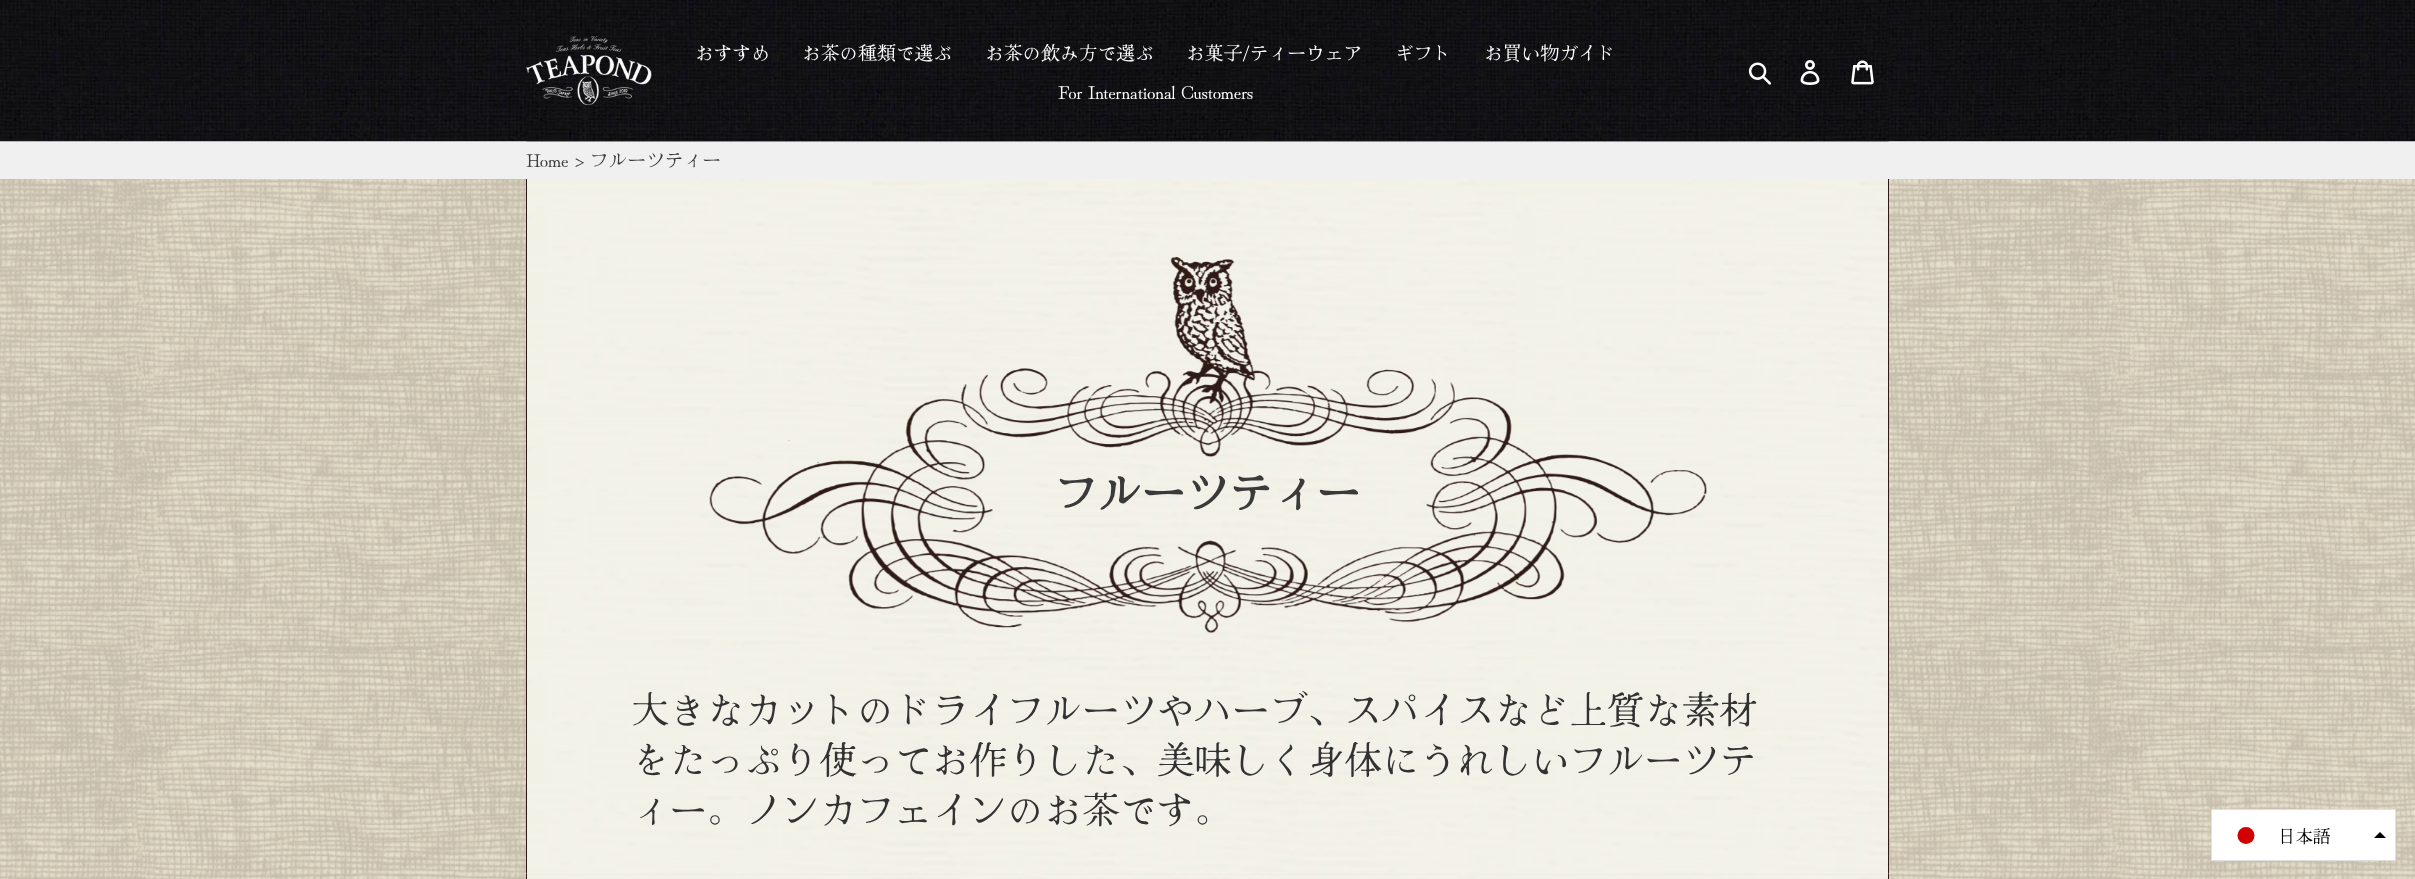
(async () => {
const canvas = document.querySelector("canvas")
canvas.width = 2415
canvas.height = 879
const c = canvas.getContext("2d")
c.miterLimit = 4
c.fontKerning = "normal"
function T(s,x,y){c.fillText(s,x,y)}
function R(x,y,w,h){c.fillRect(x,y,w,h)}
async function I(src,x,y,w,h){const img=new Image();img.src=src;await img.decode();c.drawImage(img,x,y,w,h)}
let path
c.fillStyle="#fff"
R(0,0,2415,879)
c.fillStyle="#f0f0f0"
R(0,141,2415,38)
await I("1.png",0,0,2415,142)
await I("2.png",526,0,1363,142)
await I("3.png",526,36,126,69)
c.font="18.75px Hina Mincho"
c.fillStyle="#fff"
T("おすすめ",695,60)
T("お茶の種類で選ぶ",802,60)
T("お茶の飲み方で選ぶ",985,60)
T("お菓子/ティーウェア",1186,60)
T("ギフト",1395,60)
T("お買い物ガイド",1484,60)
T("For International Customers",1058,99)
await I("4.png",1748,62,23,23)
await I("5.png",1800,60,20,25)
await I("6.png",1851,60,23,25)
await I("7.png",0,179,2415,700)
c.fillStyle="#3a3a3a"
T("Home > フルーツティー",526,167)
await I("8.png",527,179,1361,695)
c.fillStyle="#2e1a15"
R(1888,179,1,695)
R(526,179,1,695)
await I("9.png",709,257,998,376)
c.font="bold 43.75px Hina Mincho"
c.fillStyle="#3a3a3a"
T("フルーツティー",1054,509)
c.font="37.5px Hina Mincho"
c.fillStyle="#333232"
T("大きなカットのドライフルーツやハーブ、スパイスなど上質な素材",632,724)
T("をたっぷり使ってお作りした、美味しく身体にうれしいフルーツテ",632,774)
T("ィー。ノンカフェインのお茶です。",632,824)
await I("10.png",526,873,1363,6)
c.fillStyle="#2e1a15"
R(1888,874,1,5)
R(526,874,1,5)
c.fillStyle="#fff"
c.beginPath()
c.rect(2211.5,809.5,184,51)
c.fill()
c.strokeStyle="#e0e0e0"
c.stroke()
c.fillStyle="#d30000"
c.beginPath()
c.arc(2246,835.5,8.5,0,7)
c.fill()
c.font="17.5px Hina Mincho"
c.fillStyle="#000"
T("日本語",2278,843)
path = new Path2D("M2374 838l6-6l6 6z")
c.fill(path,"evenodd")
})()
